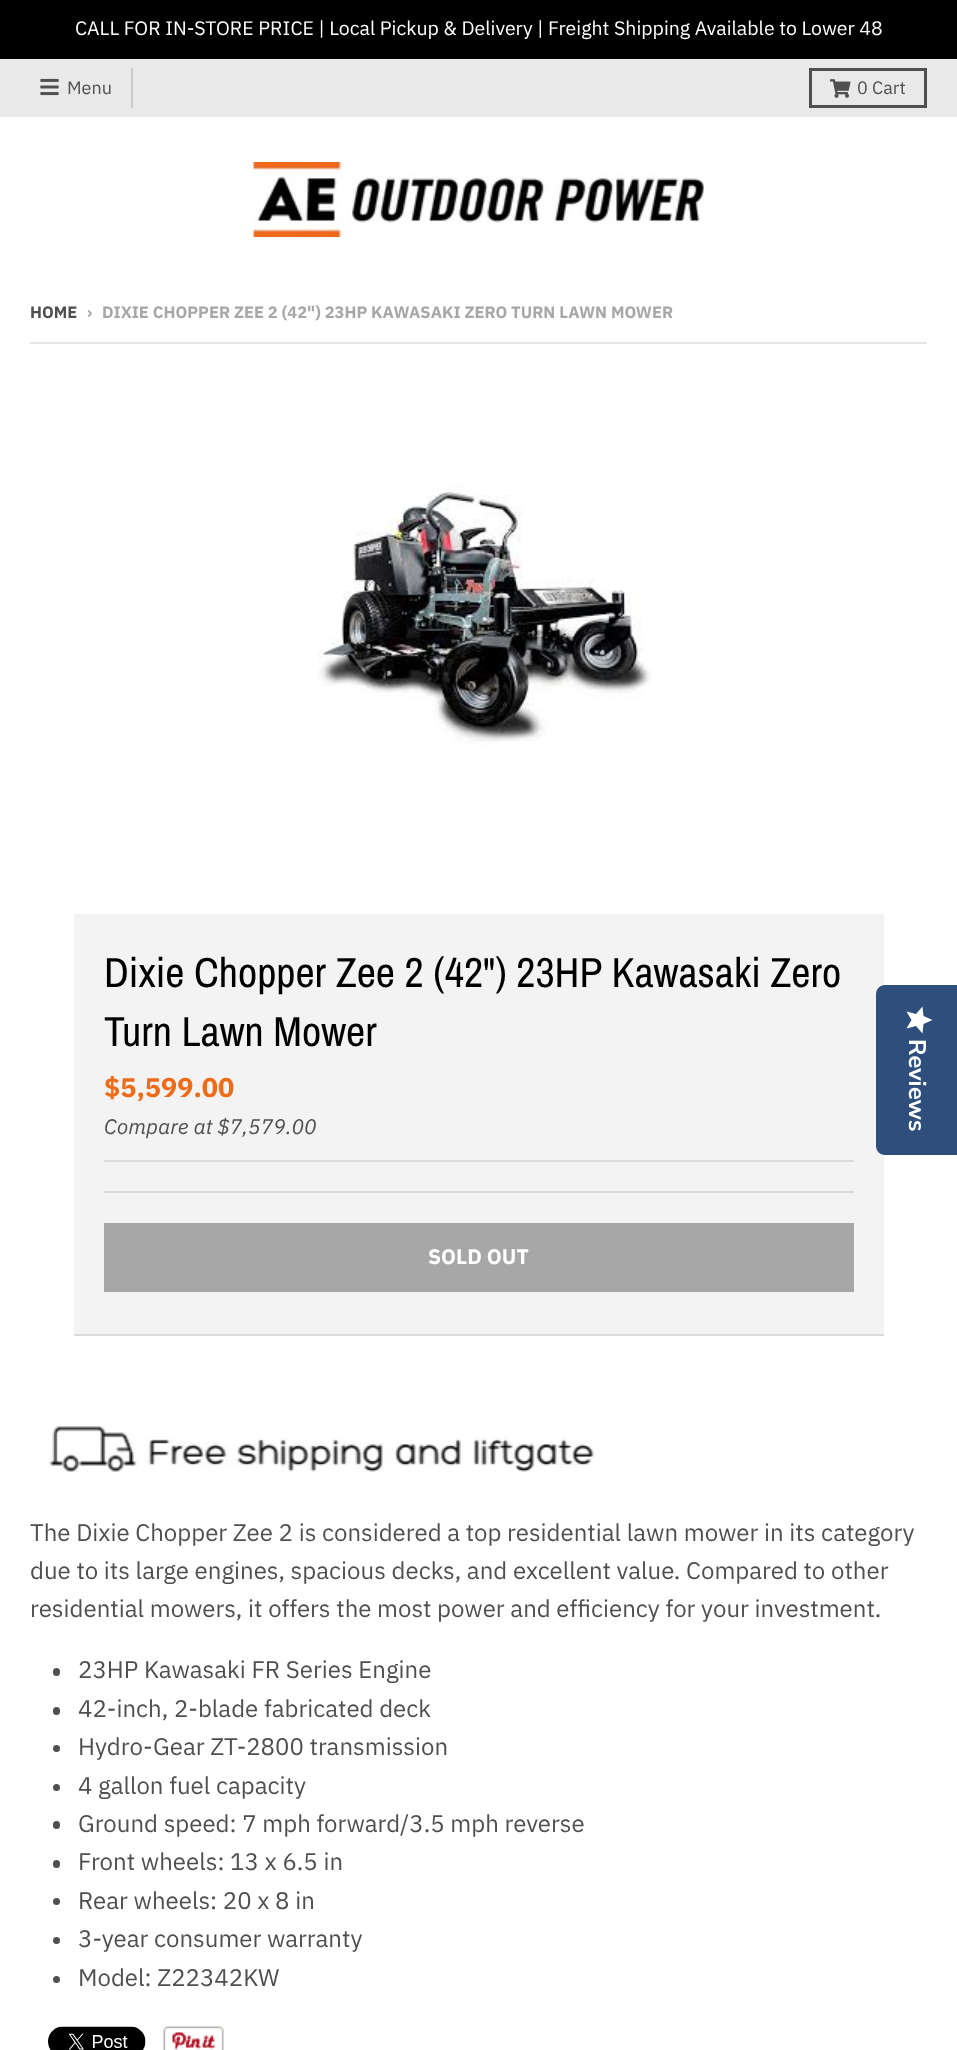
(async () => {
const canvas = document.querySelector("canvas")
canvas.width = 957
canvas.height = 2050
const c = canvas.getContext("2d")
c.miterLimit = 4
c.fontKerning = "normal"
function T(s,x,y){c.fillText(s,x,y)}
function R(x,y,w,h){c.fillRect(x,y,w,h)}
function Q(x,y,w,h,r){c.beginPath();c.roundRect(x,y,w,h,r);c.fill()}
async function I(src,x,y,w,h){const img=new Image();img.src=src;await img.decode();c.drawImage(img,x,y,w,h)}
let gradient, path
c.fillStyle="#fff"
R(0,0,957,2050)
c.fillStyle="#000"
R(0,0,957,59)
c.font="19.5px IBM Plex Sans"
c.fillStyle="#fff"
T("CALL FOR IN-STORE PRICE | Local Pickup & Delivery | Freight Shipping Available to Lower 48",75,35)
c.fillStyle="#e9e9e9"
R(0,59,957,58)
c.fillStyle="#cacaca"
R(131,68,2,40)
await I("1.png",40,78,19,18)
c.font="18px IBM Plex Sans"
c.fillStyle="#4f4f4f"
T("Menu",67,94)
c.strokeStyle="#505050"
c.lineWidth=3
c.strokeRect(810.5,69.5,115,37)
await I("2.png",830,79,21,19)
T("0 Cart",857,94)
await I("3.png",253,162,451,75)
c.font="bold 16.5px IBM Plex Sans"
T("HOME",30,318)
c.fillStyle="#a7a7a7"
T("›",87,318)
T("DIXIE CHOPPER ZEE 2 (42\") 23HP KAWASAKI ZERO TURN LAWN MOWER",102,318)
c.fillStyle="#e5e5e5"
R(30,342,897,2)
await I("4.png",318,485,333,260)
c.fillStyle="#f3f3f3"
R(74,914,810,420)
c.fillStyle="#dadada"
R(74,1334,810,2)
c.font="42px Archivo Narrow"
c.fillStyle="#000"
T("Dixie Chopper Zee 2 (42\") 23HP Kawasaki Zero",104,987)
T("Turn Lawn Mower",104,1046)
c.fillStyle="#dadada"
R(104,1160,750,2)
c.font="bold 27px IBM Plex Sans"
c.fillStyle="#ee6c18"
T("$5,599.00",104,1097)
c.font="italic 21px IBM Plex Sans"
c.fillStyle="#4f4f4f"
T("Compare at $7,579.00",104,1134)
c.fillStyle="#dadada"
R(104,1191,750,2)
c.fillStyle="#a7a7a7"
R(104,1223,750,69)
c.font="bold 21px IBM Plex Sans"
c.fillStyle="#fff"
T("SOLD OUT",428,1264)
await I("5.png",49,1426,546,47)
c.font="24px IBM Plex Sans"
c.fillStyle="#4f4f4f"
T("The Dixie Chopper Zee 2 is considered a top residential lawn mower in its category",30,1541)
T("due to its large engines, spacious decks, and excellent value. Compared to other",30,1579)
T("residential mowers, it offers the most power and efficiency for your investment.",30,1617)
Q(53,1668,7,8,3.5)
T("23HP Kawasaki FR Series Engine",78,1678)
Q(53,1707,7,8,3.5)
T("42-inch, 2-blade fabricated deck",78,1717)
c.beginPath()
c.arc(56.5,1748.5,3.5,0,7)
c.fill()
T("Hydro-Gear ZT-2800 transmission",78,1755)
c.beginPath()
c.arc(56.5,1787.5,3.5,0,7)
c.fill()
T("4 gallon fuel capacity",78,1794)
Q(53,1821,7,8,3.5)
T("Ground speed: 7 mph forward/3.5 mph reverse",78,1832)
Q(53,1860,7,8,3.5)
T("Front wheels: 13 x 6.5 in",78,1870)
c.beginPath()
c.arc(56.5,1901.5,3.5,0,7)
c.fill()
T("Rear wheels: 20 x 8 in",78,1909)
c.beginPath()
c.arc(56.5,1940.5,3.5,0,7)
c.fill()
T("3-year consumer warranty",78,1947)
c.beginPath()
c.arc(56.5,1979.5,3.5,0,7)
c.fill()
T("Model: Z22342KW",78,1986)
await I("6.png",48,2026,98,24)
await I("7.png",163,2026,61,24)
c.fillStyle="#2e4f7c"
path = new Path2D("M957 985v170h-72c-5 0-9-4-9-9v-152c0-5 4-9 9-9z")
c.fill(path)
gradient = c.createLinearGradient(932,1006,932,1034)
gradient.addColorStop(1,"#fff")
gradient.addColorStop(1,"#eaeaea")
c.fillStyle = gradient
path = new Path2D("M911.5 1020l-5 8.5l9.5-2.5l6.5 7.5l1-9.5l9-4l-9-4l-1-9.5l-6.5 7.5l-9.5-2.5z")
c.fill(path)
c.font="200 24px Nunito Sans"
c.fillStyle="#fff"
c.save()
c.translate(909,1039)
c.rotate(90 * Math.PI / 180)
c.fillText("Reviews",0,0)
c.restore()
})()
